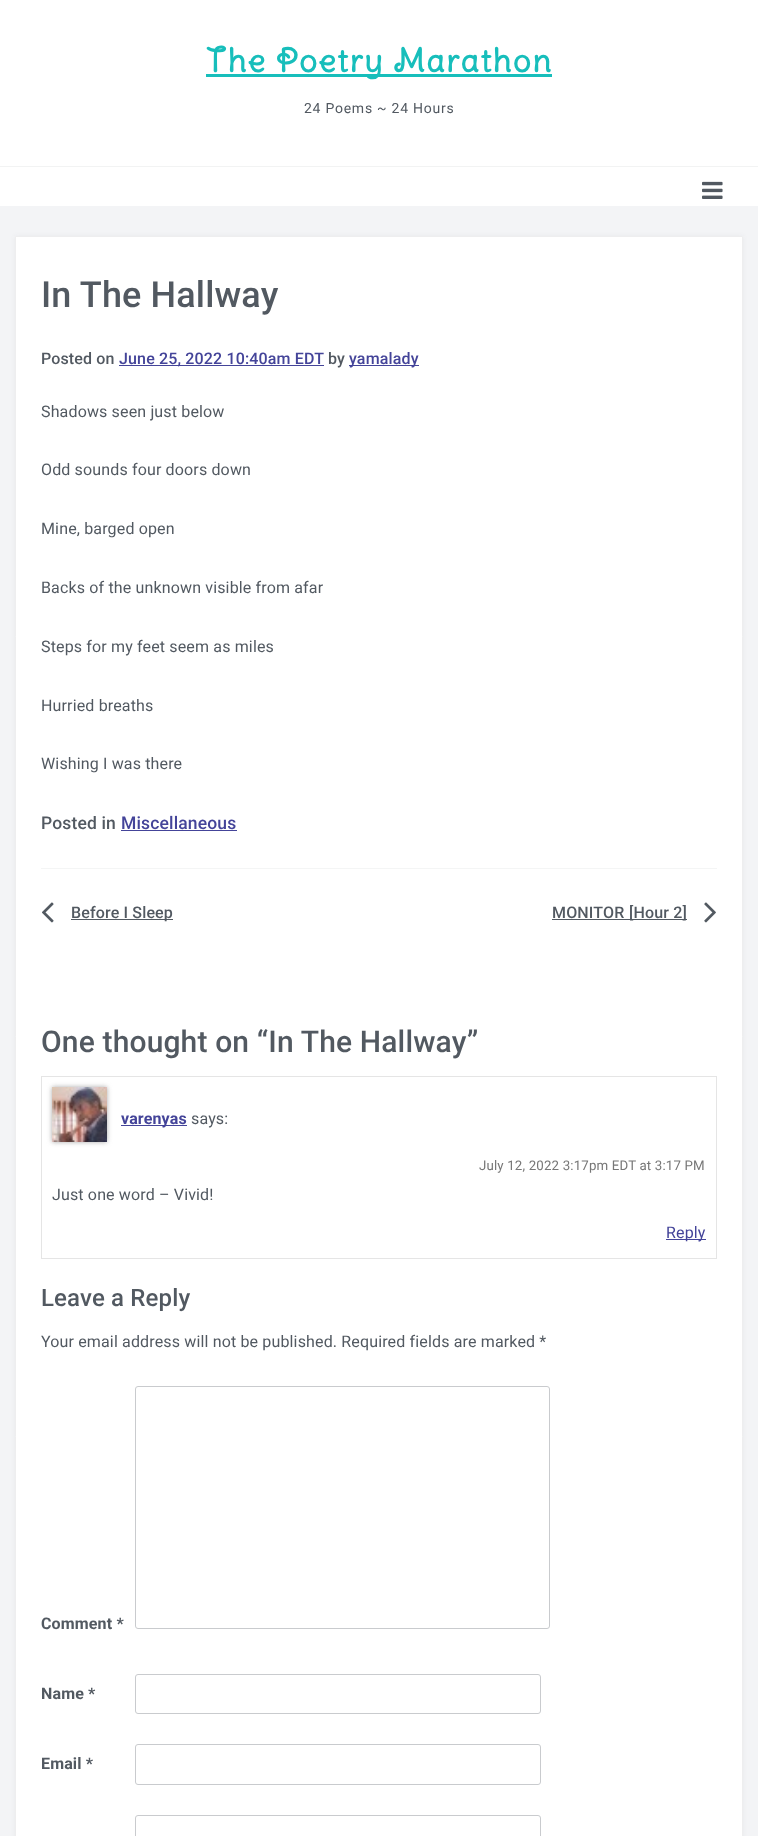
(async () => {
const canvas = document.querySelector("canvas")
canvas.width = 758
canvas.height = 1836
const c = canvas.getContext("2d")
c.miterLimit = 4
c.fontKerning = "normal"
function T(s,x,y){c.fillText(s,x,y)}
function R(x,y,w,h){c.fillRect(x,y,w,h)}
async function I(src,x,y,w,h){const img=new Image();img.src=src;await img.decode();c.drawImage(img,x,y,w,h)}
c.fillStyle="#f3f4f6"
R(0,0,758,1836)
c.fillStyle="#fff"
R(0,0,758,206)
c.fillStyle="#17bebb"
R(206,74,346,3)
c.letterSpacing="1.6px"
c.font="bold 32px Delius Swash Caps"
T("The Poetry Marathon",206,72)
c.letterSpacing="0.75px"
c.font="14px Roboto"
c.fillStyle="#525961"
T("24 Poems ~ 24 Hours",304,113)
c.fillStyle="#f2f3f3"
R(0,166,758,1)
await I("1.png",702,181,21,18)
c.fillStyle="#2730390d"
c.filter="blur(2.5px)"
c.beginPath()
c.rect(15,236,728,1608)
c.fill()
c.filter="none"
c.fillStyle="#fff"
c.beginPath()
c.rect(15.5,236.5,727,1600)
c.fill()
c.strokeStyle="#eeeeef"
c.stroke()
c.letterSpacing="0.15px"
c.font="500 36px Roboto"
c.fillStyle="#525961"
T("In The Hallway",41,307)
c.font="500 16px Roboto"
T("Posted on",41,364)
c.fillStyle="#449"
R(119,365,205,1)
T("June 25, 2022 10:40am EDT",119,364)
c.fillStyle="#525961"
T("by",328,364)
c.fillStyle="#449"
R(349,365,70,1)
T("yamalady",349,364)
c.font="16px Roboto"
c.fillStyle="#525961"
T("Shadows seen just below",41,417)
T("Odd sounds four doors down",41,475)
T("Mine, barged open",41,534)
T("Backs of the unknown visible from afar",41,593)
T("Steps for my feet seem as miles",41,652)
T("Hurried breaths",41,711)
T("Wishing I was there",41,769)
c.font="500 17.5px Roboto"
T("Posted in",41,829)
c.fillStyle="#449"
T("Miscellaneous",121,829)
R(121,830,116,1)
c.fillStyle="#f4f5f5"
R(41,868,676,1)
await I("2.png",42,902,12,21)
c.fillStyle="#525961"
R(71,919,102,1)
c.font="500 16px Roboto"
T("Before I Sleep",71,918)
T("MONITOR",552,918)
R(552,919,135,1)
T("[Hour 2]",629,918)
await I("3.png",704,902,12,21)
c.font="500 30px Roboto"
T("One thought on “In The Hallway”",41,1052)
c.strokeStyle="#e5e5e5"
c.strokeRect(41.5,1076.5,675,182)
c.fillStyle="#aaa"
c.filter="blur(2.5px)"
c.beginPath()
c.rect(52,1087,55,55)
c.fill()
c.filter="none"
await I("4.png",52,1087,55,55)
c.fillStyle="#449"
R(121,1125,66,1)
c.font="bold 16px Roboto"
T("varenyas",121,1124)
c.font="16px Roboto"
c.fillStyle="#525961"
T("says:",191,1124)
c.font="13.3px Roboto"
c.fillStyle="#777"
T("July 12, 2022 3:17pm EDT at 3:17 PM",479,1170)
c.font="16px Roboto"
c.fillStyle="#525961"
T("Just one word – Vivid!",52,1200)
c.fillStyle="#449"
R(666,1239,40,1)
T("Reply",666,1238)
c.font="500 24px Roboto"
c.fillStyle="#525961"
T("Leave a Reply",41,1306)
c.font="16px Roboto"
T("Your email address will not be published. Required fields are marked *",41,1347)
c.font="bold 16px Roboto"
T("Comment *",41,1629)
c.beginPath()
c.roundRect(135.5,1386.5,414,242,2.5)
c.strokeStyle="#c9cbce"
c.stroke()
T("Name *",41,1699)
c.beginPath()
c.roundRect(135.5,1674.5,405,39,2.5)
c.stroke()
T("Email *",41,1769)
c.beginPath()
c.roundRect(135.5,1744.5,405,40,2.5)
c.stroke()
c.beginPath()
c.roundRect(135.5,1815.5,405,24,2.5)
c.stroke()
})()
